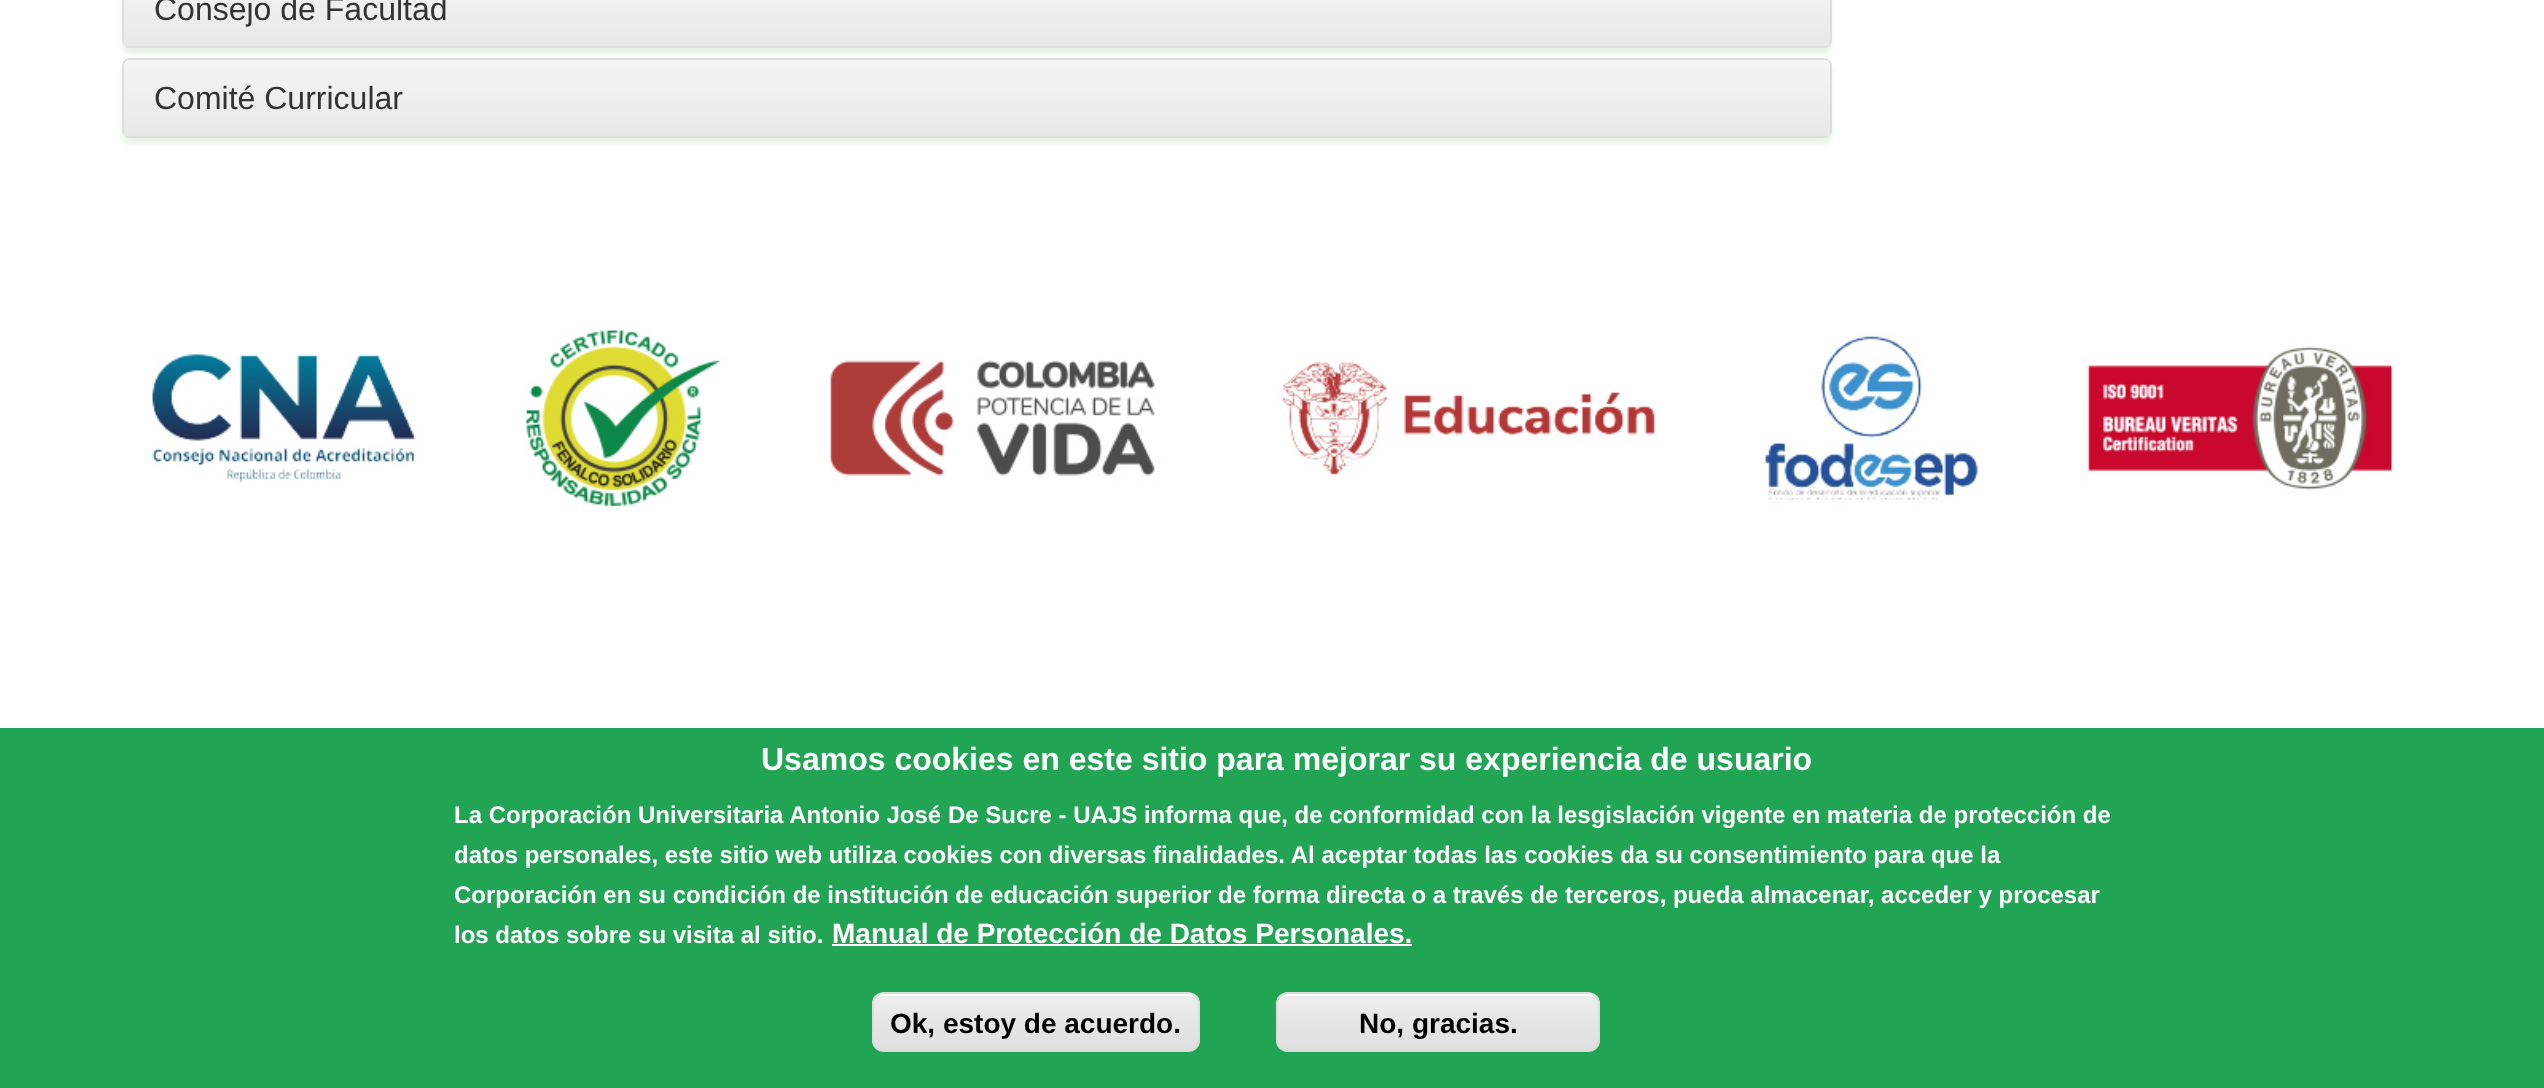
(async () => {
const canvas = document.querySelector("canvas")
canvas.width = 2544
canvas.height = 1088
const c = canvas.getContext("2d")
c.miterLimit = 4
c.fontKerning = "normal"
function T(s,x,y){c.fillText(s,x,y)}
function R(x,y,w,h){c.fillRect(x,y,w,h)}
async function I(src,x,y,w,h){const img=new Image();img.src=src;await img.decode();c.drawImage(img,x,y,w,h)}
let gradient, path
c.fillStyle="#fff"
R(0,0,2544,1088)
c.fillStyle="#2b7e111a"
c.filter="blur(2px)"
c.beginPath()
c.roundRect(122,-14,1710,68,8)
c.fill()
c.filter="none"
c.beginPath()
c.roundRect(123,-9,1708,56,7)
c.strokeStyle="#ddd"
c.lineWidth=2
c.stroke()
gradient = c.createLinearGradient(977,-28,977,46)
gradient.addColorStop(0,"#f5f5f5")
gradient.addColorStop(1,"#e8e8e8")
c.fillStyle = gradient
R(124,0,1706,46)
c.font="32px Liberation Sans"
c.fillStyle="#333"
T("Consejo de Facultad",154,20)
c.fillStyle="#2b7e111a"
c.filter="blur(2px)"
c.beginPath()
c.roundRect(122,64,1710,80,8)
c.fill()
c.filter="none"
c.beginPath()
c.roundRect(123,59,1708,78,7)
c.stroke()
gradient = c.createLinearGradient(977,60,977,136)
gradient.addColorStop(0,"#f5f5f5")
gradient.addColorStop(1,"#e8e8e8")
c.fillStyle = gradient
c.beginPath()
c.roundRect(124,60,1706,76,[6,6,0,0])
c.fill()
c.fillStyle="#333"
T("Comité Curricular",154,109)
await I("1.png",152,330,2240,177)
c.fillStyle="#21a454"
R(0,728,2544,360)
c.font="bold 32px Liberation Sans"
c.fillStyle="#fff"
T("Usamos cookies en este sitio para mejorar su experiencia de usuario",761,770)
c.font="bold 24px Liberation Sans"
T("La Corporación Universitaria Antonio José De Sucre - UAJS informa que, de conformidad con la lesgislación vigente en materia de protección de",454,823)
T("datos personales, este sitio web utiliza cookies con diversas finalidades. Al aceptar todas las cookies da su consentimiento para que la",454,863)
T("Corporación en su condición de institución de educación superior de forma directa o a través de terceros, pueda almacenar, acceder y procesar",454,903)
T("los datos sobre su visita al sitio.",454,943)
c.font="bold 28px Liberation Sans"
T("Manual de Protección de Datos Personales.",832,943)
R(832,944,580,2)
c.save()
c.beginPath()
c.roundRect(872,992,328,60,12)
c.clip()
gradient = c.createLinearGradient(1036,994,1036,1050)
gradient.addColorStop(.05,"#ededed")
gradient.addColorStop(1,"#dfdfdf")
c.fillStyle = gradient
R(872,994,328,56)
c.restore()
path = new Path2D("M884 996h304c6 0 10 4 10 10v-2c0-6-4-10-10-10h-304c-6 0-10 4-10 10v2c0-6 4-10 10-10z")
c.fill(path)
c.beginPath()
c.roundRect(873,993,326,58,11)
c.strokeStyle="#dcdcdc"
c.stroke()
c.fillStyle="#000"
T("Ok, estoy de acuerdo.",890,1033)
c.save()
c.beginPath()
c.roundRect(1276,992,324,60,12)
c.clip()
gradient = c.createLinearGradient(1438,994,1438,1050)
gradient.addColorStop(.05,"#ededed")
gradient.addColorStop(1,"#dfdfdf")
c.fillStyle = gradient
R(1276,994,324,56)
c.restore()
c.fillStyle="#fff"
path = new Path2D("M1288 996h300c6 0 10 4 10 10v-2c0-6-4-10-10-10h-300c-6 0-10 4-10 10v2c0-6 4-10 10-10z")
c.fill(path)
c.beginPath()
c.roundRect(1277,993,322,58,11)
c.stroke()
c.fillStyle="#000"
T("No, gracias.",1359,1033)
})()
